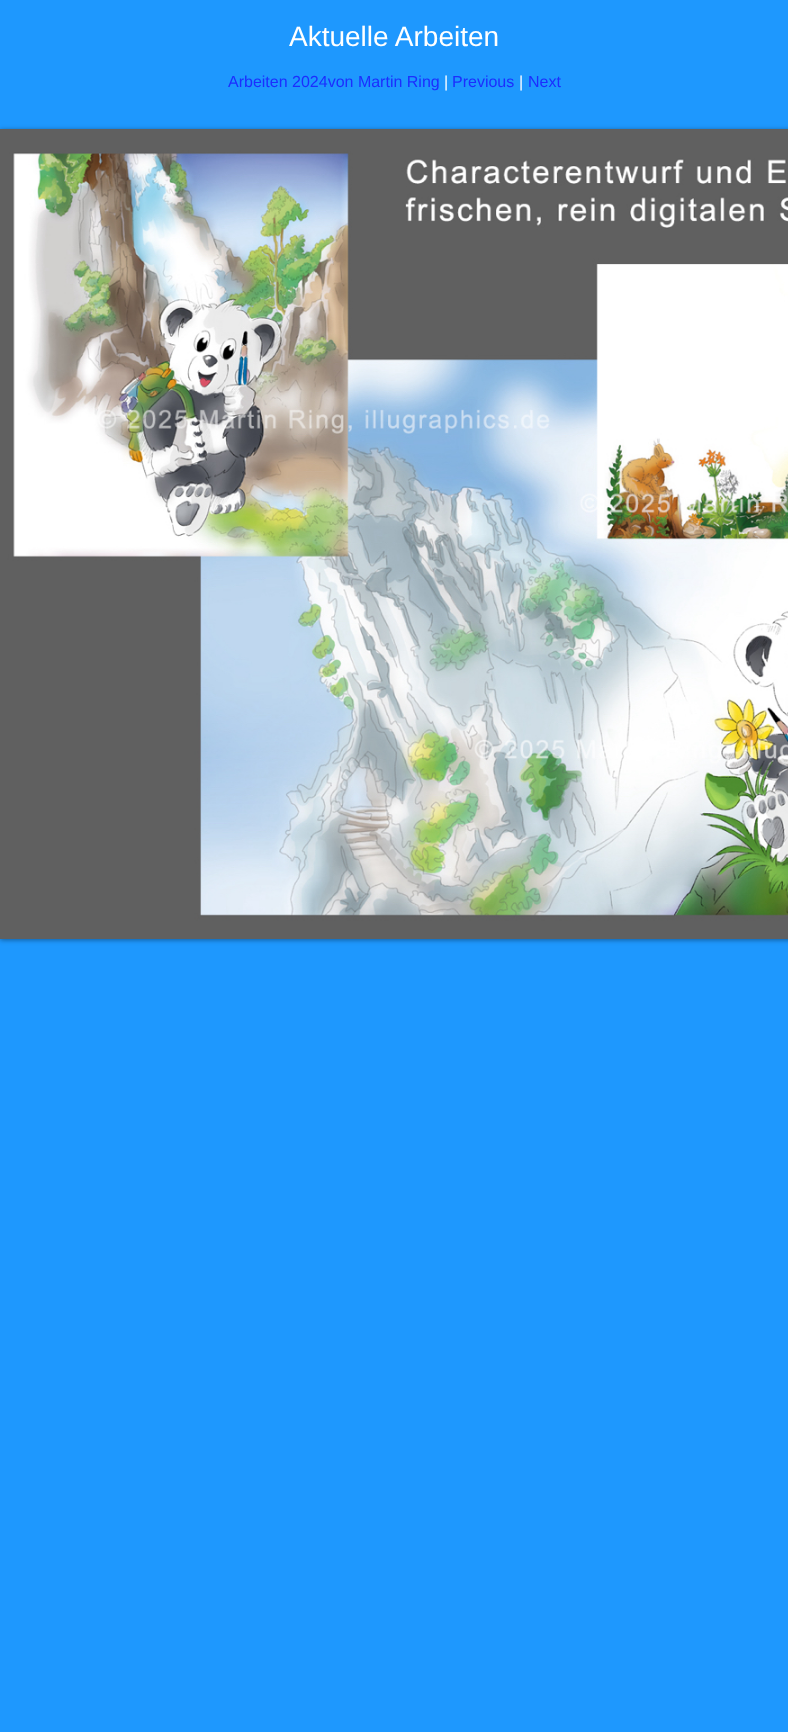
(async () => {
const canvas = document.querySelector("canvas")
canvas.width = 788
canvas.height = 1732
const c = canvas.getContext("2d")
c.miterLimit = 4
c.fontKerning = "normal"
function T(s,x,y){c.fillText(s,x,y)}
function R(x,y,w,h){c.fillRect(x,y,w,h)}
async function I(src,x,y,w,h){const img=new Image();img.src=src;await img.decode();c.drawImage(img,x,y,w,h)}
c.fillStyle="#1e98fe"
R(0,0,788,1732)
c.font="28px Liberation Sans"
c.fillStyle="#fff"
T("Aktuelle Arbeiten",289,46)
c.font="16px Liberation Sans"
c.fillStyle="#1c2efe"
T("Arbeiten 2024von Martin Ring",228,87)
c.fillStyle="#fff"
T("|",444,87)
c.fillStyle="#1c2efe"
T("Previous",452,87)
c.fillStyle="#fff"
T("|",519,87)
c.fillStyle="#1c2efe"
T("Next",528,87)
c.fillStyle="#00000066"
c.filter="blur(2.5px)"
c.beginPath()
c.rect(0,130,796,810)
c.fill()
c.filter="none"
await I("1.png",0,129,788,810)
})()
